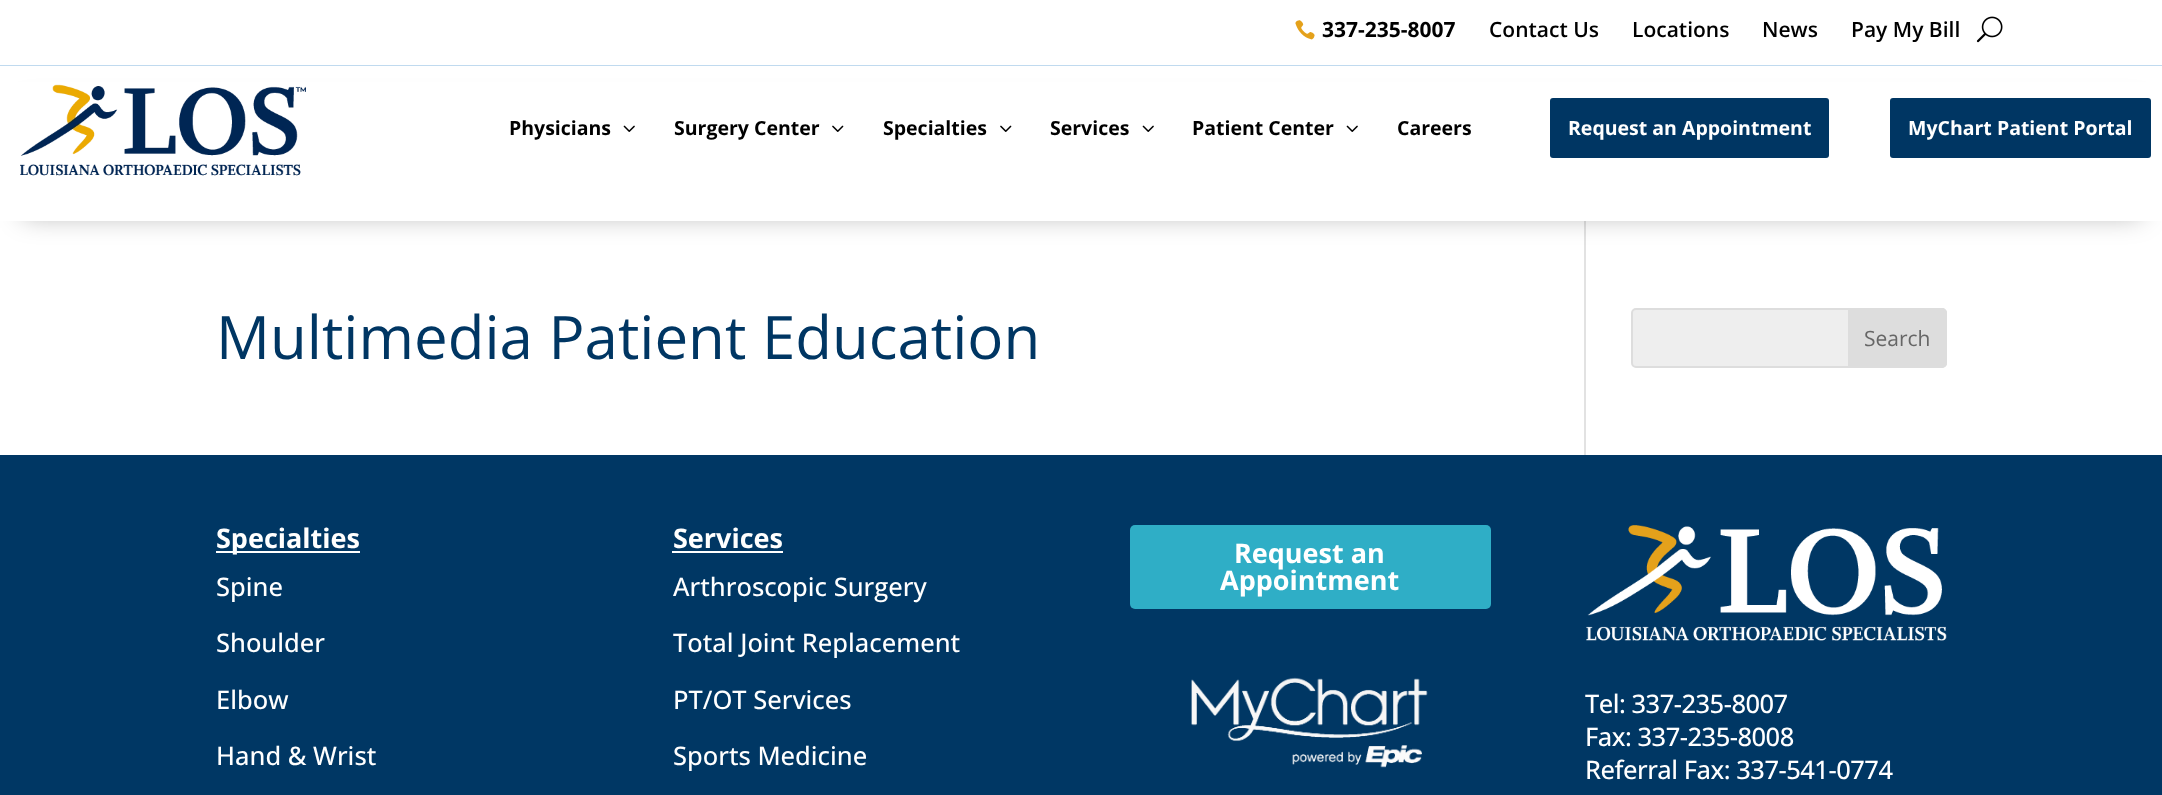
(async () => {
const canvas = document.querySelector("canvas")
canvas.width = 2162
canvas.height = 795
const c = canvas.getContext("2d")
c.miterLimit = 4
c.fontKerning = "normal"
function T(s,x,y){c.fillText(s,x,y)}
function R(x,y,w,h){c.fillRect(x,y,w,h)}
function Q(x,y,w,h,r){c.beginPath();c.roundRect(x,y,w,h,r);c.fill()}
async function I(src,x,y,w,h){const img=new Image();img.src=src;await img.decode();c.drawImage(img,x,y,w,h)}
c.fillStyle="#fff"
R(0,0,2162,795)
c.fillStyle="#c0daef"
R(0,65,2162,1)
await I("1.png",1295,20,20,20)
c.font="bold 21px Open Sans"
c.fillStyle="#000"
T("337-235-8007",1322,37)
c.font="600 21px Open Sans"
T("Contact Us",1489,37)
T("Locations",1632,37)
T("News",1762,37)
T("Pay My Bill",1851,37)
await I("2.png",1976,16,27,27)
c.fillStyle="#e2e2e2"
R(1584,221,2,234)
c.fillStyle="#0000004d"
c.filter="blur(13.5px)"
c.beginPath()
c.rect(23,107,2118,109)
c.fill()
c.filter="none"
c.fillStyle="#fff"
R(0,82,2162,139)
await I("3.png",20,84,286,92)
c.font="bold 19.5px Open Sans"
c.fillStyle="#000"
T("Physicians",509,135)
await I("4.png",623,125,12,7)
T("Surgery Center",674,135)
await I("5.png",832,125,12,7)
T("Specialties",883,135)
await I("5.png",1000,125,12,7)
T("Services",1050,135)
await I("4.png",1142,125,12,7)
T("Patient Center",1192,135)
await I("4.png",1346,125,12,7)
T("Careers",1397,135)
c.fillStyle="#003663"
Q(1550,98,279,60,3)
c.fillStyle="#fff"
T("Request an Appointment",1568,135)
c.fillStyle="#003663"
Q(1890,98,261,60,3)
c.fillStyle="#fff"
T("MyChart Patient Portal",1908,135)
c.font="60px Open Sans"
c.fillStyle="#003663"
T("Multimedia Patient Education",216,359)
c.fillStyle="#eee"
c.beginPath()
c.roundRect(1632,309,314,58,4)
c.fill()
c.strokeStyle="#ddd"
c.lineWidth=2
c.stroke()
c.fillStyle="#ddd"
c.beginPath()
c.roundRect(1849,309,97,58,[0,4,4,0])
c.fill()
c.stroke()
c.font="21px Open Sans"
c.fillStyle="#666"
T("Search",1864,346)
c.fillStyle="#003764"
R(0,455,2162,340)
c.fillStyle="#fff"
R(216,551,144,2)
c.font="bold 27px Open Sans"
T("Specialties",216,548)
c.font="500 25.5px Open Sans"
T("Spine",216,596)
T("Shoulder",216,652)
T("Elbow",216,709)
T("Hand & Wrist",216,765)
c.font="bold 27px Open Sans"
T("Services",673,548)
R(672,551,111,2)
c.font="500 25.5px Open Sans"
T("Arthroscopic Surgery",673,596)
T("Total Joint Replacement",673,652)
T("PT/OT Services",673,709)
T("Sports Medicine",673,765)
c.fillStyle="#2faec6"
Q(1130,525,361,84,5)
c.font="bold 27px Open Sans"
c.fillStyle="#fff"
T("Request an",1234,563)
T("Appointment",1220,590)
await I("6.png",1191,677,237,91)
await I("7.png",1586,525,361,116)
c.letterSpacing="-0.5px"
c.font="500 25.5px Open Sans"
T("Tel: 337-235-8007",1585,713)
T("Fax: 337-235-8008",1585,746)
T("Referral Fax: 337-541-0774",1585,779)
})()
